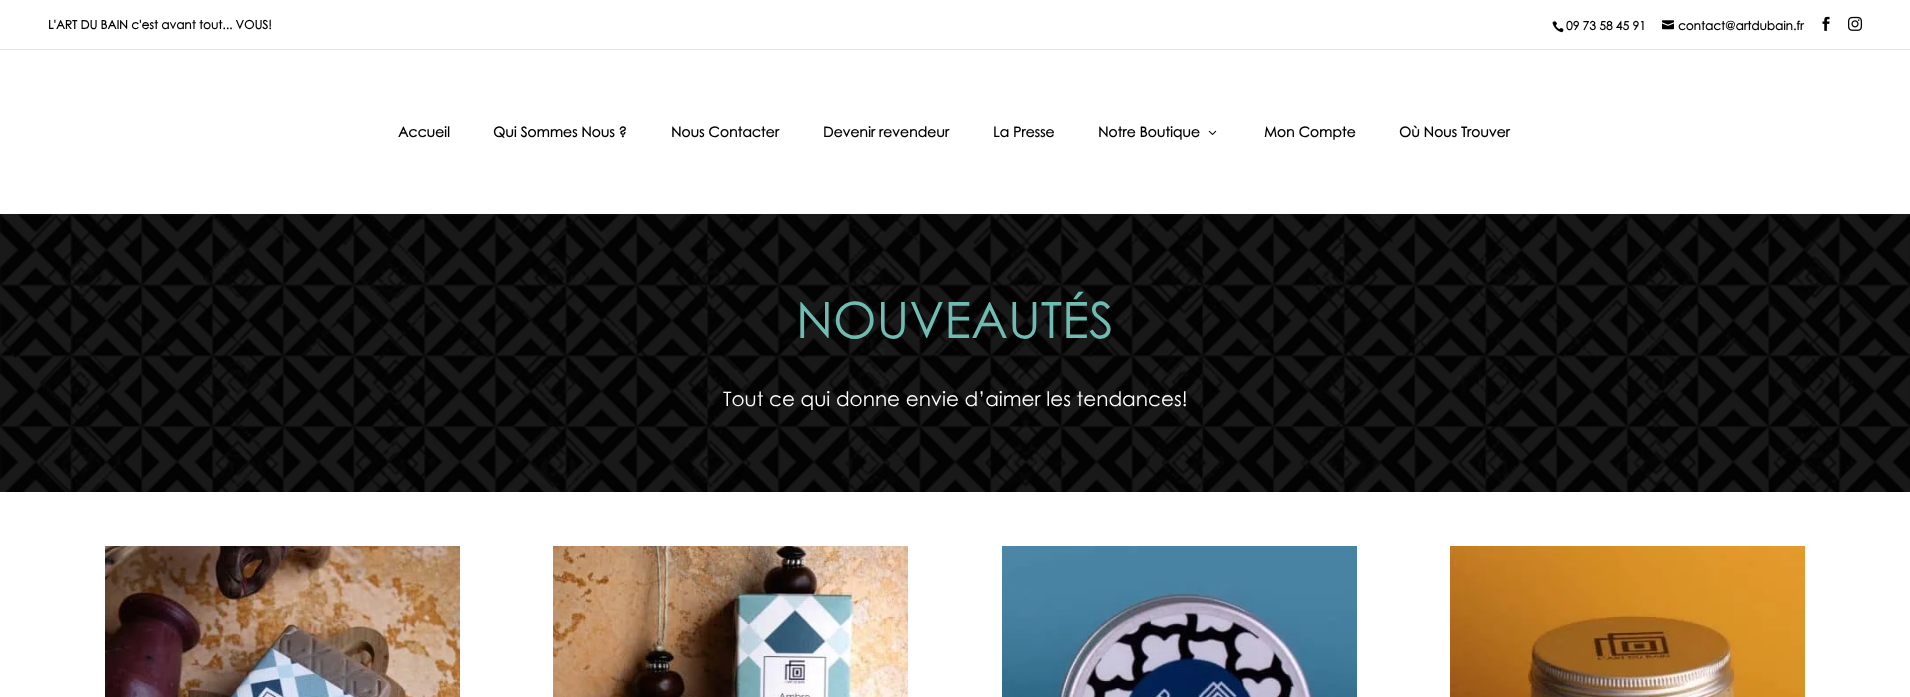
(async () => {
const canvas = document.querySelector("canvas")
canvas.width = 1910
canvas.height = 697
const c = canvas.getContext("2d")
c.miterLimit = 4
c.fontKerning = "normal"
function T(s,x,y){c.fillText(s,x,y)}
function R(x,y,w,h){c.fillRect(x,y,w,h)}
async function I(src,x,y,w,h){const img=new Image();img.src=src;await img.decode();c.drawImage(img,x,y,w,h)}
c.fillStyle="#fff"
R(0,0,1910,697)
c.fillStyle="#e3e3e3"
R(0,49,1910,1)
c.font="bold 12px Century Gothic"
c.fillStyle="#000"
T("L'ART DU BAIN c'est avant tout... VOUS!",48,29)
await I("1.png",1552,21,12,12)
T("09 73 58 45 91",1566,30)
await I("2.png",1662,20,12,10)
T("contact@artdubain.fr",1678,30)
await I("3.png",1822,16,8,15)
await I("4.png",1848,16,14,15)
c.font="bold 14px Century Gothic"
T("Accueil",398,137)
T("Qui Sommes Nous ?",493,137)
T("Nous Contacter",671,137)
T("Devenir revendeur",823,137)
T("La Presse",993,137)
T("Notre Boutique",1098,137)
await I("5.png",1208,130,9,5)
T("Mon Compte",1264,137)
T("Où Nous Trouver",1399,137)
await I("6.png",0,214,1910,278)
await I("7.png",0,214,1910,278)
c.font="50px Century Gothic"
c.fillStyle="#6fbcb3"
T("NOUVEAUTÉS",796,338)
c.font="20px Century Gothic"
c.fillStyle="#fff"
T("Tout ce qui donne envie d’aimer les tendances!",723,406)
await I("8.png",105,546,355,151)
await I("9.png",553,546,355,151)
await I("10.png",1002,546,355,151)
await I("11.png",1450,546,355,151)
})()
